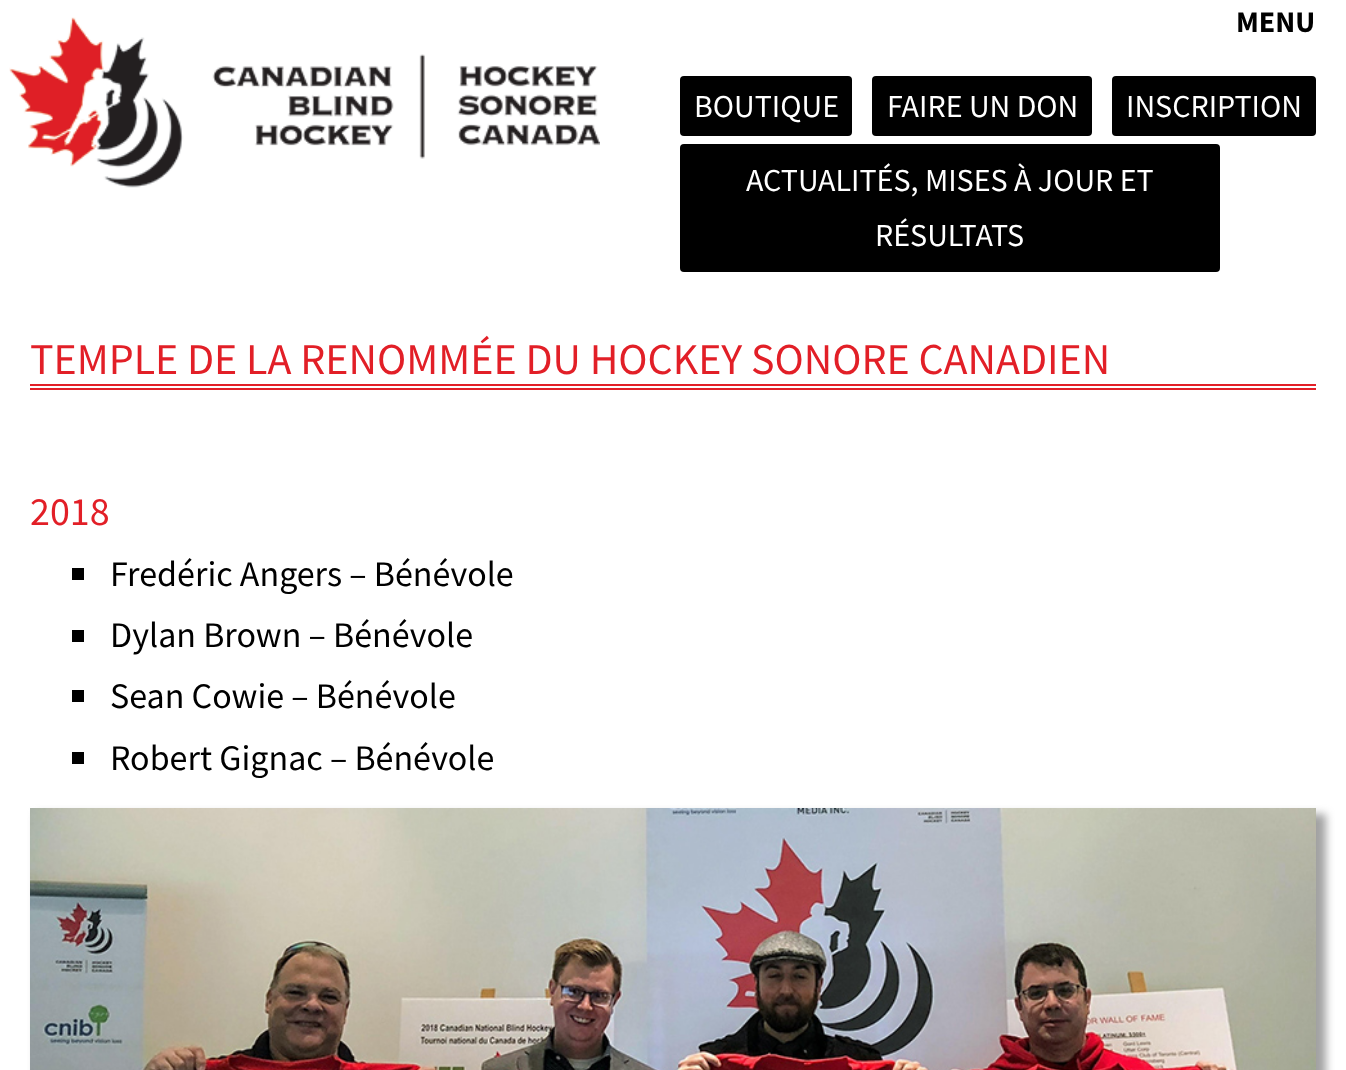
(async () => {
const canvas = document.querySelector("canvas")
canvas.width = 1346
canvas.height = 1070
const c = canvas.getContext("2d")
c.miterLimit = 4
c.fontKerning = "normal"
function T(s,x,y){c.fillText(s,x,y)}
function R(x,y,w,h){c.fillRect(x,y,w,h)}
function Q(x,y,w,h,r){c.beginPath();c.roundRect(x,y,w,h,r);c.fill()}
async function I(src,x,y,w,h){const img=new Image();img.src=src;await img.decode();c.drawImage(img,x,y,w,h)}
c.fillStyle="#fff"
R(0,0,1346,1070)
await I("1.png",9,17,591,171)
c.font="bold 30px Source Sans Pro"
c.fillStyle="#000"
T("MENU",1236,32)
Q(680,76,172,60,4)
c.font="32px Source Sans Pro"
c.fillStyle="#fff"
T("BOUTIQUE",694,117)
c.fillStyle="#000"
Q(872,76,220,60,4)
c.fillStyle="#fff"
T("FAIRE UN DON",887,117)
c.fillStyle="#000"
Q(1112,76,204,60,4)
c.fillStyle="#fff"
T("INSCRIPTION",1126,117)
c.fillStyle="#000"
Q(680,144,540,128,4)
c.fillStyle="#fff"
T("ACTUALITÉS, MISES À JOUR ET",746,191)
T("RÉSULTATS",875,246)
c.fillStyle="#e21f27"
R(30,384,1286,2)
R(30,388,1286,2)
c.font="44px Source Sans Pro"
T("TEMPLE DE LA RENOMMÉE DU HOCKEY SONORE CANADIEN",30,374)
c.font="40px Source Sans Pro"
T("2018",30,525)
c.fillStyle="#000"
R(72,568,12,12)
c.font="36px Source Sans Pro"
T("Fredéric Angers – Bénévole",110,586)
R(72,630,12,12)
T("Dylan Brown – Bénévole",110,647)
R(72,690,12,12)
T("Sean Cowie – Bénévole",110,708)
R(72,752,12,12)
T("Robert Gignac – Bénévole",110,770)
c.fillStyle="#7a7a7ab3"
c.filter="blur(4px)"
c.beginPath()
c.rect(36,814,1290,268)
c.fill()
c.filter="none"
await I("2.png",30,808,1286,262)
})()
